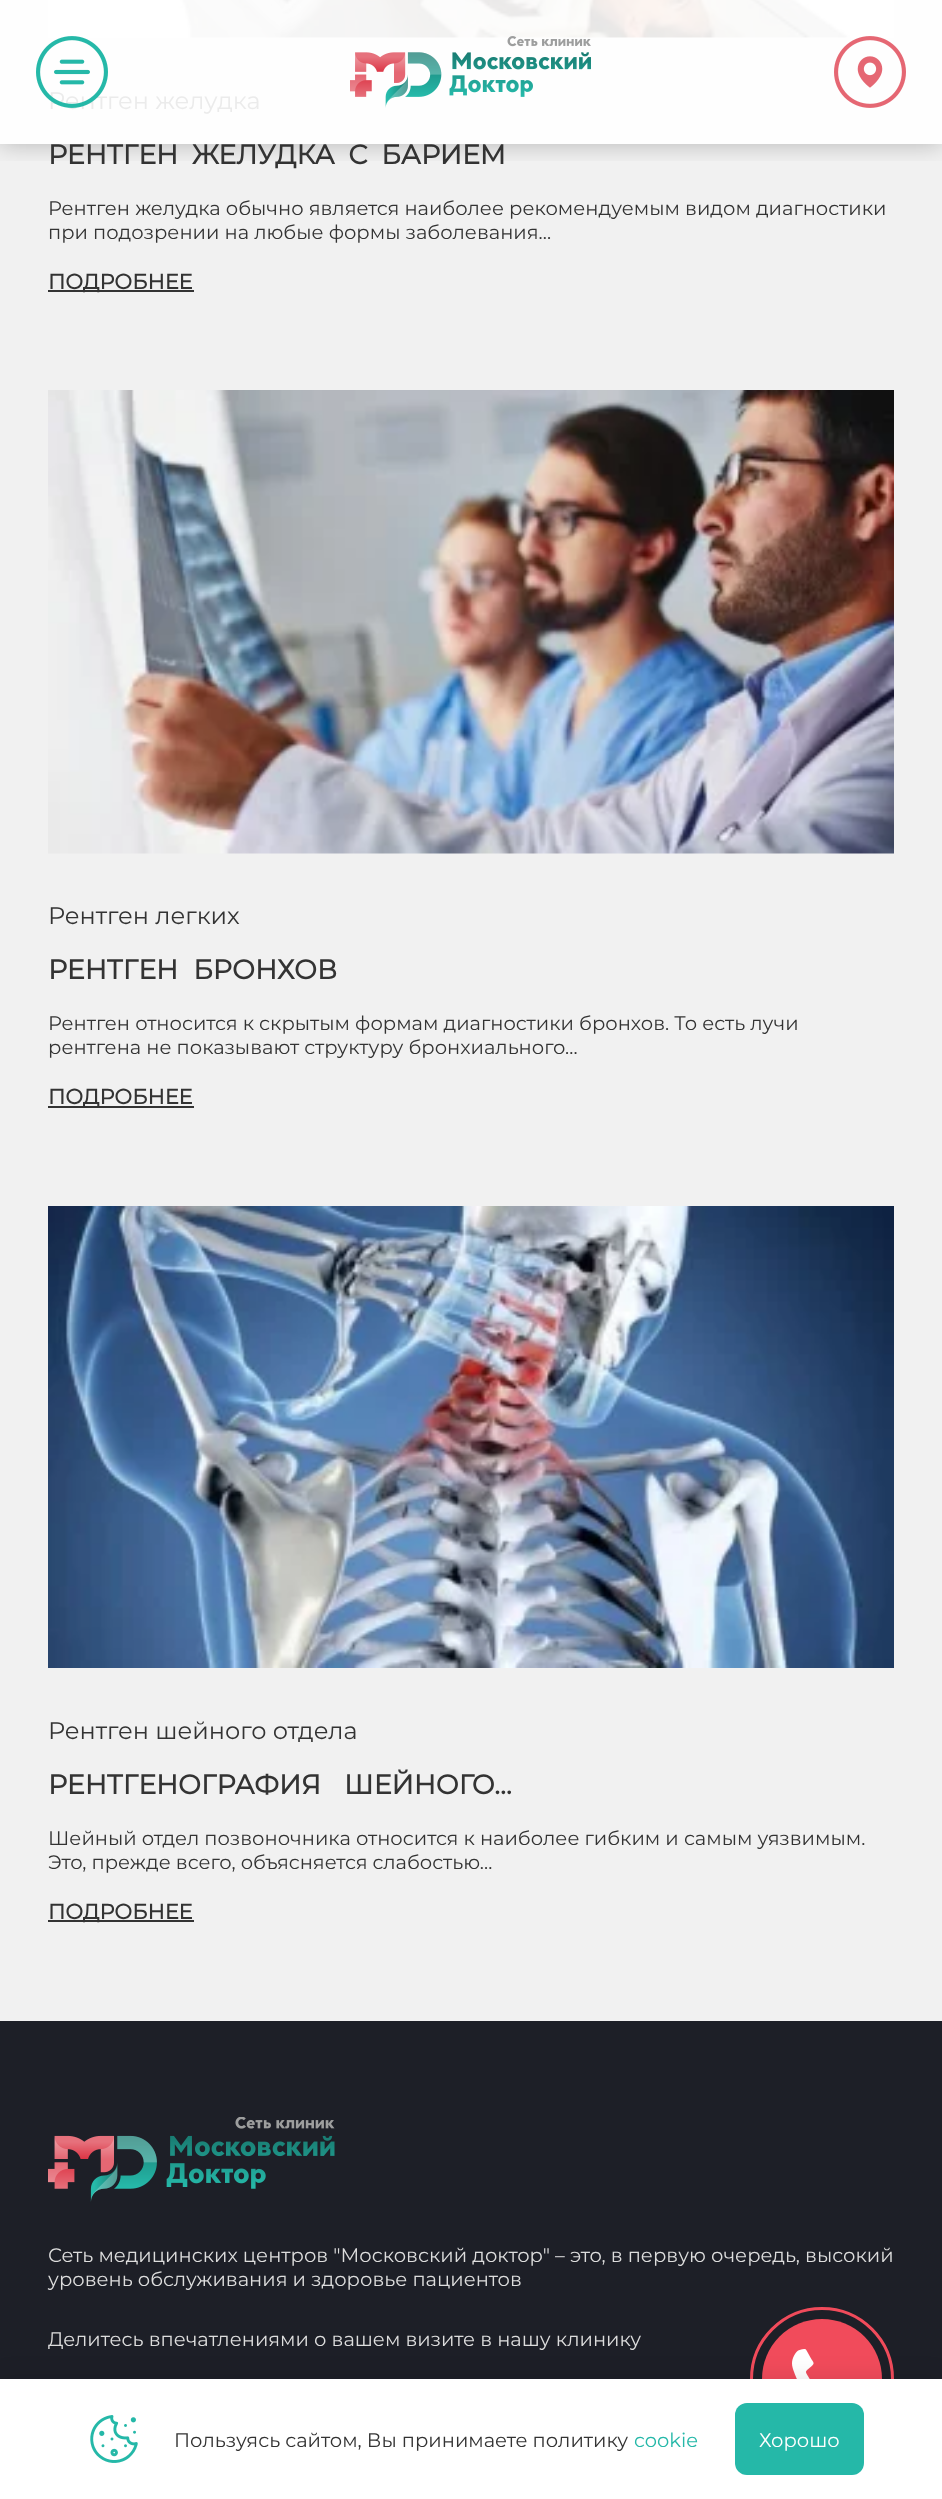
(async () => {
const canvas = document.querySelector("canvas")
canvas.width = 942
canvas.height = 2499
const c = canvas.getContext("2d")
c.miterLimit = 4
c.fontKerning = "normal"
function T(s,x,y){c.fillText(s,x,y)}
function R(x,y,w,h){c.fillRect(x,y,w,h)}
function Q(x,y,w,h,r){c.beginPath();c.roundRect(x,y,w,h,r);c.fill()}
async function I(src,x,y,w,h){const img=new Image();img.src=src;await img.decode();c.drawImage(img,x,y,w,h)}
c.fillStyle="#f1f1f1"
R(0,0,942,2499)
c.fillStyle="#fefefe"
R(0,0,942,144)
await I("4.png",48,0,846,38)
c.save()
c.beginPath()
c.rect(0,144,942,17)
c.clip()
c.fillStyle="#00000040"
c.filter="blur(12px)"
c.beginPath()
c.rect(0,0,942,144)
c.fill()
c.filter="none"
c.restore()
c.font="24px Montserrat"
c.fillStyle="#ebebeb"
T("Рентген желудка",48,109)
await I("1.png",36,36,72,72)
await I("2.png",350,36,241,72)
await I("3.png",834,36,72,72)
c.wordSpacing="6.5px"
c.font="bold 27px Montserrat"
c.fillStyle="#333"
T("РЕНТГЕН ЖЕЛУДКА С БАРИЕМ",48,164)
c.wordSpacing="0px"
c.font="19.5px Montserrat"
T("Рентген желудка обычно является наиболее рекомендуемым видом диагностики",48,215)
T("при подозрении на любые формы заболевания…",48,239)
R(48,290,146,2)
c.font="bold 21px Montserrat"
T("ПОДРОБНЕЕ",48,289)
await I("5.png",48,390,846,464)
c.font="24px Montserrat"
T("Рентген легких",48,924)
c.wordSpacing="8px"
c.font="bold 27px Montserrat"
T("РЕНТГЕН БРОНХОВ",48,979)
c.wordSpacing="0px"
c.font="19.5px Montserrat"
T("Рентген относится к скрытым формам диагностики бронхов. То есть лучи",48,1030)
T("рентгена не показывают структуру бронхиального…",48,1054)
R(48,1106,146,2)
c.font="bold 21px Montserrat"
T("ПОДРОБНЕЕ",48,1104)
await I("6.png",48,1206,846,462)
c.font="24px Montserrat"
T("Рентген шейного отдела",48,1739)
c.wordSpacing="16px"
c.font="bold 27px Montserrat"
T("РЕНТГЕНОГРАФИЯ ШЕЙНОГО…",48,1794)
c.wordSpacing="0px"
c.font="19.5px Montserrat"
T("Шейный отдел позвоночника относится к наиболее гибким и самым уязвимым.",48,1845)
T("Это, прежде всего, объясняется слабостью…",48,1869)
R(48,1920,146,2)
c.font="bold 21px Montserrat"
T("ПОДРОБНЕЕ",48,1919)
c.fillStyle="#1d1f27"
R(0,2021,942,358)
await I("7.png",48,2117,287,85)
c.font="19.5px Montserrat"
c.fillStyle="#ddd"
T("Сеть медицинских центров \"Московский доктор\" – это, в первую очередь, высокий",48,2262)
T("уровень обслуживания и здоровье пациентов",48,2286)
T("Делитесь впечатлениями о вашем визите в нашу клинику",48,2346)
c.beginPath()
c.arc(822,2379,70.5,0,7)
c.strokeStyle="#f14b5b"
c.lineWidth=3
c.stroke()
c.fillStyle="#f14b5b"
c.beginPath()
c.arc(822,2379,60,0,7)
c.fill()
await I("8.png",792,2349,22,30)
c.fillStyle="#0000001a"
c.filter="blur(12px)"
c.beginPath()
c.rect(0,2379,942,120)
c.fill()
c.filter="none"
c.fillStyle="#fff"
R(0,2379,942,120)
await I("9.png",90,2415,48,48)
c.fillStyle="#333"
T("Пользуясь сайтом, Вы принимаете политику",174,2447)
c.fillStyle="#25b8a8"
T("cookie",634,2447)
Q(735,2403,129,72,12)
c.fillStyle="#fff"
T("Хорошо",759,2447)
})()
